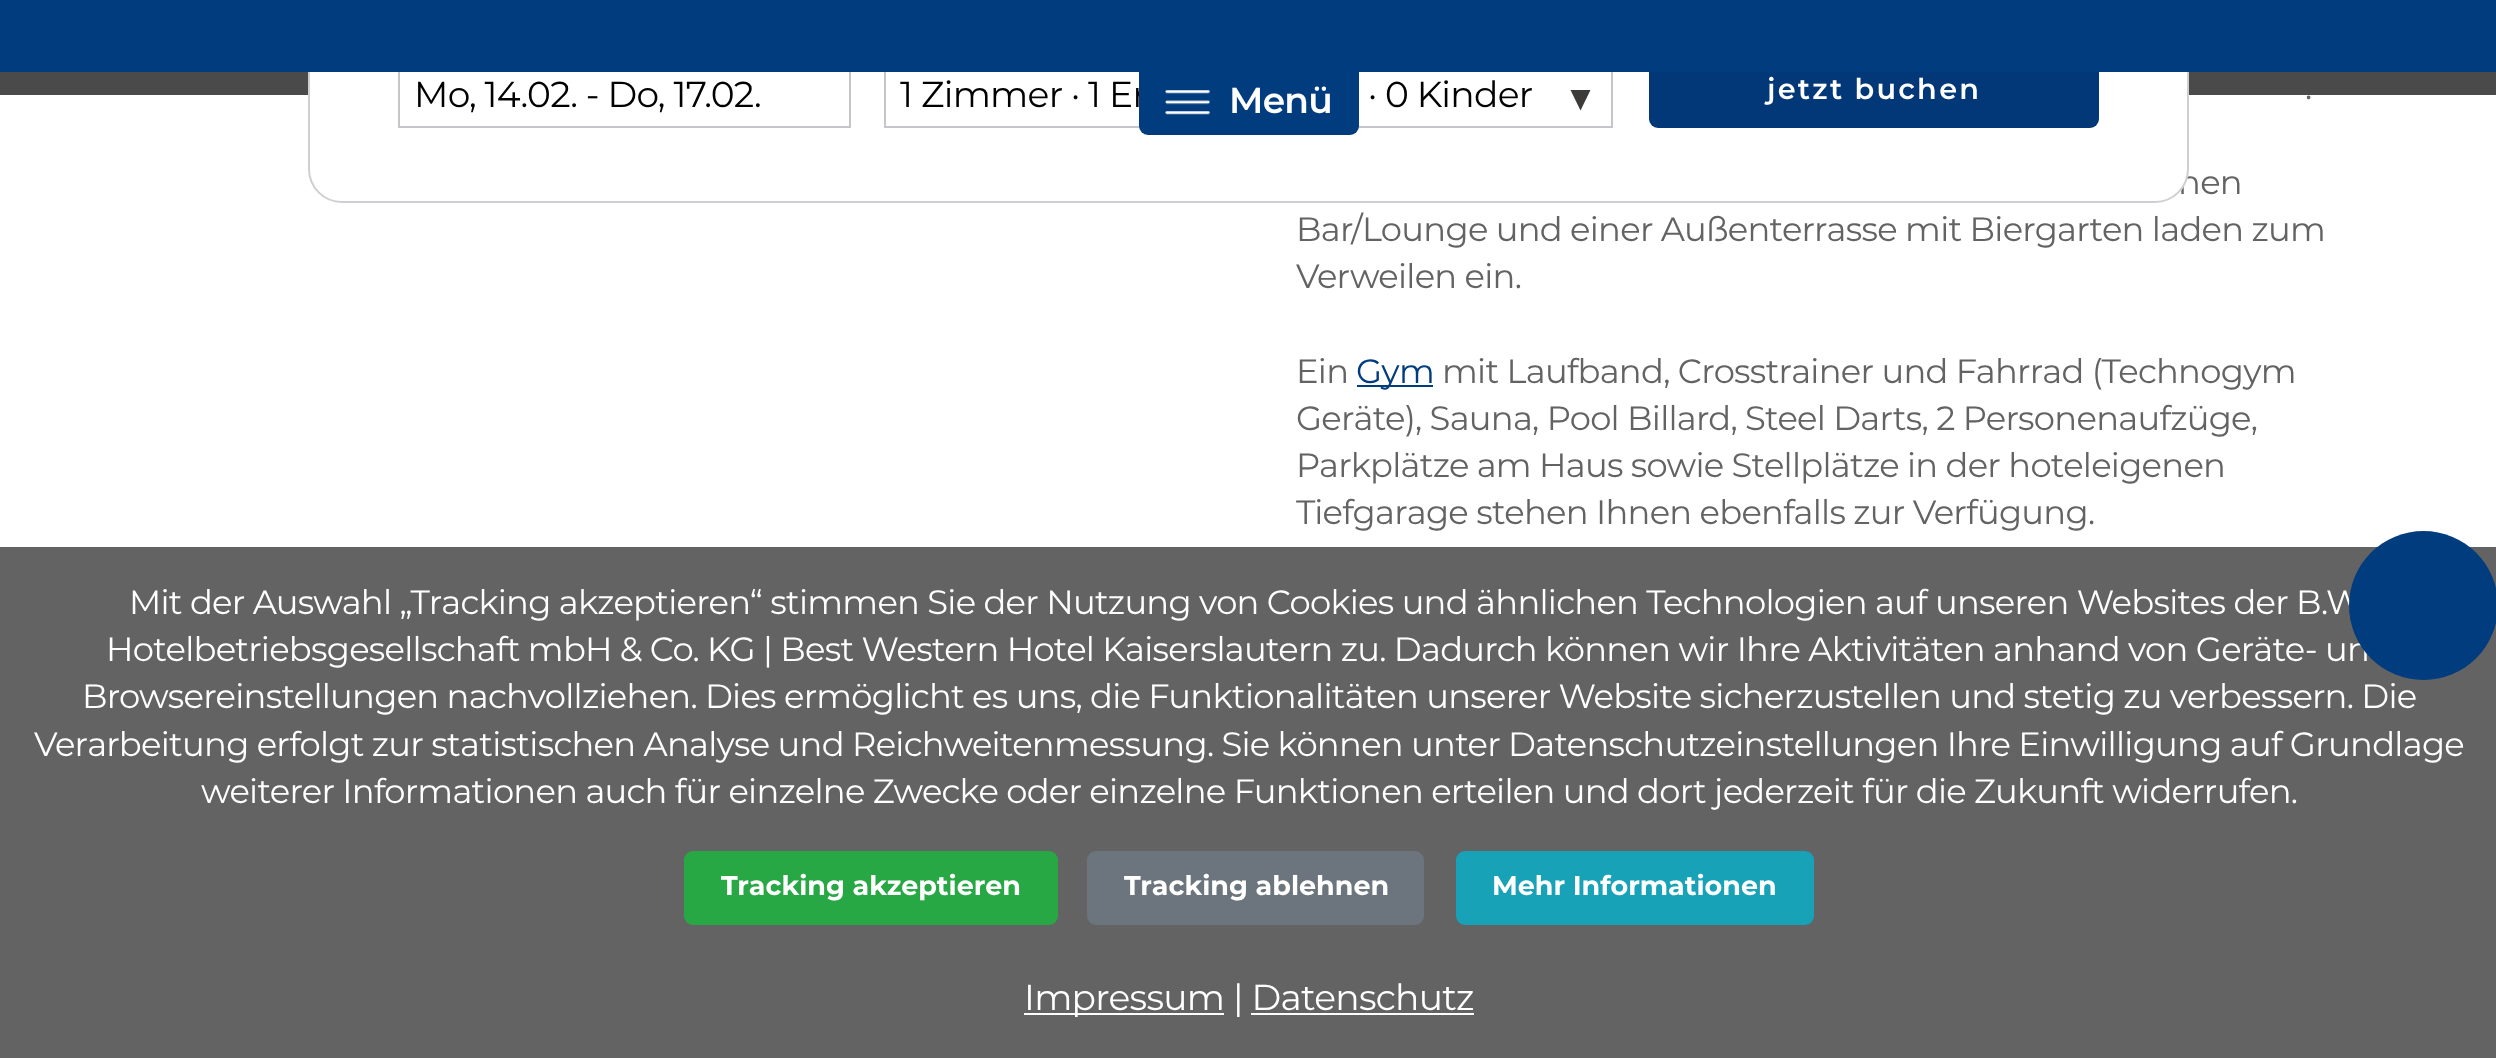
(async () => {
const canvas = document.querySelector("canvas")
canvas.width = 2496
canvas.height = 1058
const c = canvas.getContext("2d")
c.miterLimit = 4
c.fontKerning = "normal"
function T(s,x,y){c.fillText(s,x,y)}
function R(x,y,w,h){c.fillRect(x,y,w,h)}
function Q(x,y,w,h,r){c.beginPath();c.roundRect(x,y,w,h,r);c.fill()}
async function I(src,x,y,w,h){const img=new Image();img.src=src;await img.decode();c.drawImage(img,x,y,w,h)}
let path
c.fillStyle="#fff"
R(0,0,2496,1058)
c.fillStyle="#4a4a4a"
R(0,72,2496,23)
c.letterSpacing="-0.72px"
c.font="33.75px Montserrat"
c.fillStyle="#646363"
T("hen",2178,194)
c.fillStyle="#fff"
c.beginPath()
c.roundRect(309,-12,1879,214,33)
c.fill()
c.strokeStyle="#d0cdd3"
c.lineWidth=2
c.stroke()
c.strokeStyle="#c6c5c9"
c.strokeRect(399,57,451,70)
c.font="36px Montserrat"
c.fillStyle="#000"
T("Mo, 14.02. - Do, 17.02.",414,107)
c.fillStyle="#3c3b3a"
path = new Path2D("M1580.5 110.5l-10-20.5h20z")
c.fill(path,"evenodd")
c.strokeRect(885,57,727,70)
c.fillStyle="#000"
T("1 Zimmer · 1 Er",900,107)
T("· 0 Kinder",1368,107)
c.fillStyle="#033878"
Q(1649,56,450,72,9)
c.letterSpacing="2.25px"
c.font="600 28.75px Montserrat"
c.fillStyle="#fff"
T("jetzt buchen",1767,99)
c.fillStyle="#003c7e"
R(0,0,2496,72)
Q(1139,0,220,135,9)
await I("1.png",1165,90,45,25)
c.letterSpacing="-0.72px"
c.font="600 36px Montserrat"
c.fillStyle="#fff"
T("Menü",1229,113)
c.font="33.75px Montserrat"
c.fillStyle="#646363"
T(".",2305,99)
T("Bar/Lounge und einer Außenterrasse mit Biergarten laden zum",1296,241)
T("Verweilen ein.",1296,288)
T("Ein",1296,383)
c.fillStyle="#003c7e"
R(1357,385,76,2)
T("Gym",1356,383)
c.fillStyle="#646363"
T("mit Laufband, Crosstrainer und Fahrrad (Technogym",1442,383)
T("Geräte), Sauna, Pool Billard, Steel Darts, 2 Personenaufzüge,",1296,430)
T("Parkplätze am Haus sowie Stellplätze in der hoteleigenen",1296,477)
T("Tiefgarage stehen Ihnen ebenfalls zur Verfügung.",1296,524)
R(0,547,2496,511)
c.fillStyle="#fff"
T("Mit der Auswahl „Tracking akzeptieren“ stimmen Sie der Nutzung von Cookies und ähnlichen Technologien auf unseren Websites der B.W",129,614)
T("Hotelbetriebsgesellschaft mbH & Co. KG | Best Western Hotel Kaiserslautern zu. Dadurch können wir Ihre Aktivitäten anhand von Geräte- un",106,661)
c.fillStyle="#003c7e"
c.beginPath()
c.arc(2423.5,605.5,74.5,0,7)
c.fill()
c.fillStyle="#fff"
T("Browsereinstellungen nachvollziehen. Dies ermöglicht es uns, die Funktionalitäten unserer Website sicherzustellen und stetig zu verbessern. Die",82,708)
T("Verarbeitung erfolgt zur statistischen Analyse und Reichweitenmessung. Sie können unter Datenschutzeinstellungen Ihre Einwilligung auf Grundlage",34,756)
T("weiterer Informationen auch für einzelne Zwecke oder einzelne Funktionen erteilen und dort jederzeit für die Zukunft widerrufen.",201,803)
c.fillStyle="#28a745"
Q(684,851,374,74,9)
c.letterSpacing="0px"
c.font="bold 27px Montserrat"
c.fillStyle="#fff"
T("Tracking akzeptieren",721,895)
c.fillStyle="#6c757d"
Q(1087,851,337,74,9)
c.fillStyle="#fff"
T("Tracking ablehnen",1124,895)
c.fillStyle="#17a2b8"
Q(1456,851,358,74,9)
c.fillStyle="#fff"
T("Mehr Informationen",1492,895)
R(1024,1013,200,2)
c.letterSpacing="-0.72px"
c.font="36px Montserrat"
T("Impressum | Datenschutz",1024,1010)
R(1251,1013,223,2)
})()
